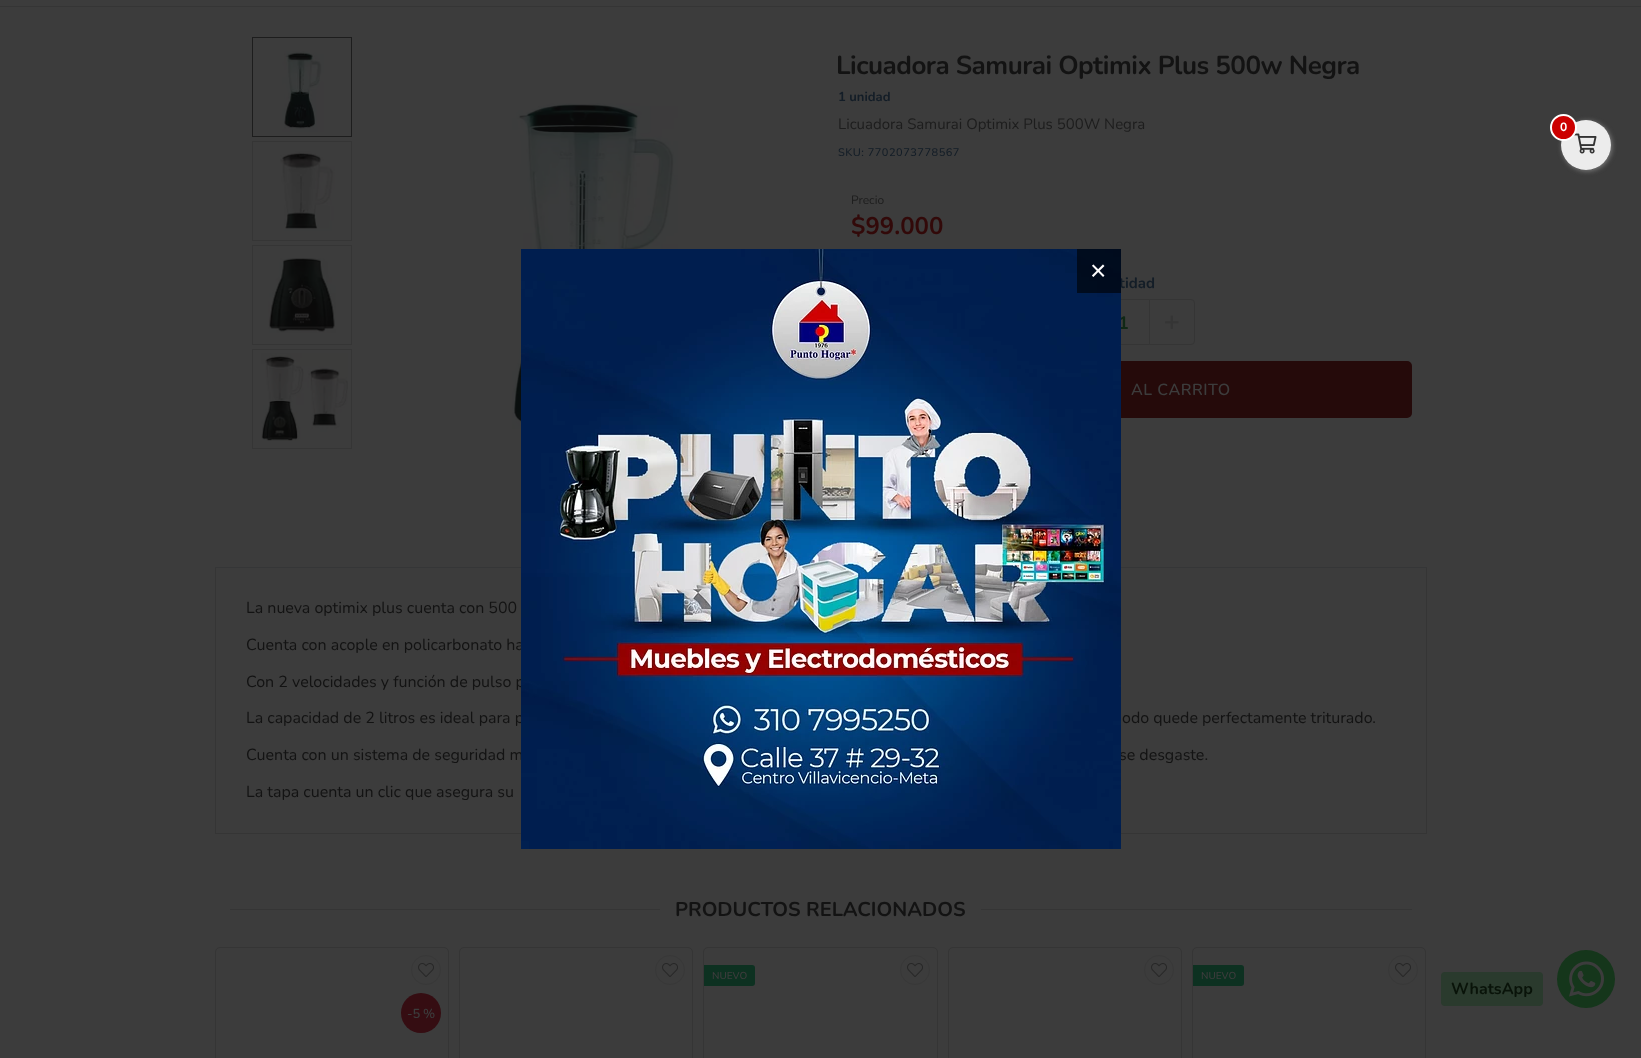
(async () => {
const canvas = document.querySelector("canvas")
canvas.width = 1641
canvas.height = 1058
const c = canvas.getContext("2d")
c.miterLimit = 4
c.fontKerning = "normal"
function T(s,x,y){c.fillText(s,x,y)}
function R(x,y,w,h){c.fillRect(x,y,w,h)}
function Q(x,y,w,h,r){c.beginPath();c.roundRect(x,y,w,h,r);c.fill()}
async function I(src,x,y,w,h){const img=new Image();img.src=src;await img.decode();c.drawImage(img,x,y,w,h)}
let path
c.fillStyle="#3c3c3c"
R(0,0,1641,1058)
c.fillStyle="#353535"
R(0,6,1641,1)
c.strokeStyle="#1d1d1d"
c.strokeRect(252.5,37.5,99,99)
await I("1.png",282,51,42,81)
c.strokeStyle="#353535"
c.strokeRect(252.5,141.5,99,99)
await I("2.png",280,151,55,80)
c.strokeRect(252.5,245.5,99,99)
await I("3.png",268,258,68,75)
c.strokeRect(252.5,349.5,99,99)
await I("4.png",261,353,87,88)
await I("5.png",512,103,166,332)
c.letterSpacing="-0.5px"
c.font="bold 26px Nunito"
c.fillStyle="#131313"
T("Licuadora Samurai Optimix Plus 500w Negra",836,74)
c.letterSpacing="0px"
c.font="bold 13px Nunito"
c.fillStyle="#131d27"
T("1 unidad",838,101)
c.font="15px Nunito"
c.fillStyle="#1d1d1d"
T("Licuadora Samurai Optimix Plus 500W Negra",838,129)
c.letterSpacing="0.5px"
c.font="500 11px Nunito"
c.fillStyle="#131d27"
T("SKU: 7702073778567",838,156)
c.letterSpacing="0px"
c.font="12px Nunito"
c.fillStyle="#1d1d1d"
T("Precio",851,204)
c.font="bold 24px Nunito"
c.fillStyle="#320909"
T("$99.000",851,234)
c.font="bold 15px Nunito"
c.fillStyle="#131d27"
T("tidad",1119,288)
c.fillStyle="#353535"
R(1121,299,28,1)
R(1121,344,28,1)
c.font="bold 18px Nunito"
c.fillStyle="#102815"
T("1",1118,329)
c.beginPath()
c.roundRect(1149.5,299.5,45,45,[0,3.5,3.5,0])
c.stroke()
await I("6.png",1165,315,14,14)
c.fillStyle="#250a0a"
Q(836,361,576,57,5)
c.letterSpacing="0.5px"
c.font="600 16px Nunito"
c.fillStyle="#3c3c3c"
T("AL CARRITO",1131,395)
c.fillStyle="#353637"
R(215,567,1212,1)
c.fillStyle="#353535"
R(1426,568,1,266)
R(215,833,1212,1)
R(215,568,1,266)
c.letterSpacing="0px"
c.font="16px Nunito"
c.fillStyle="#131313"
T("La nueva optimix plus cuenta con 500",246,613)
T("Cuenta con acople en policarbonato ha",246,650)
T("Con 2 velocidades y función de pulso p",246,687)
T("La capacidad de 2 litros es ideal para p",246,723)
T("odo quede perfectamente triturado.",1122,723)
T("Cuenta con un sistema de seguridad m",246,760)
T("se desgaste.",1119,760)
T("La tapa cuenta un clic que asegura su",246,797)
c.fillStyle="#353535"
R(230,909,430,1)
c.font="bold 20px Nunito"
c.fillStyle="#131313"
T("PRODUCTOS RELACIONADOS",675,916)
c.fillStyle="#353535"
R(981,909,431,1)
c.beginPath()
c.roundRect(459.5,947.5,233,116,4.5)
c.stroke()
c.beginPath()
c.arc(670,970,14.5,0,7)
c.strokeStyle="#383838"
c.stroke()
await I("7.png",662,963,16,14)
c.beginPath()
c.roundRect(703.5,947.5,234,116,4.5)
c.strokeStyle="#353535"
c.stroke()
c.fillStyle="#0d3121"
c.beginPath()
c.roundRect(704,965,51,21,[0,3,3,0])
c.fill()
c.font="600 10px Nunito"
c.fillStyle="#3c3c3c"
T("NUEVO",712,979)
c.beginPath()
c.arc(915,970,14.5,0,7)
c.strokeStyle="#383838"
c.stroke()
await I("7.png",907,963,16,14)
c.beginPath()
c.roundRect(948.5,947.5,233,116,4.5)
c.strokeStyle="#353535"
c.stroke()
c.beginPath()
c.arc(1159,970,14.5,0,7)
c.strokeStyle="#383838"
c.stroke()
await I("7.png",1151,963,16,14)
c.beginPath()
c.roundRect(1192.5,947.5,233,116,4.5)
c.strokeStyle="#353535"
c.stroke()
c.fillStyle="#0d3121"
c.beginPath()
c.roundRect(1193,965,51,21,[0,3,3,0])
c.fill()
c.fillStyle="#3c3c3c"
T("NUEVO",1201,979)
c.beginPath()
c.arc(1403,970,14.5,0,7)
c.strokeStyle="#383838"
c.stroke()
await I("7.png",1395,963,16,14)
c.beginPath()
c.roundRect(215.5,947.5,233,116,4.5)
c.strokeStyle="#353535"
c.stroke()
c.beginPath()
c.arc(426,970,14.5,0,7)
c.strokeStyle="#383838"
c.stroke()
await I("7.png",418,963,16,14)
c.fillStyle="#350d12"
c.beginPath()
c.arc(421,1013,20,0,7)
c.fill()
c.font="600 13px Nunito"
c.fillStyle="#3c3c3c"
T("-5",407,1018)
T("%",423,1018)
c.save()
path = new Path2D("M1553 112h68v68h-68zm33 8c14 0 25 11 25 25c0 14-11 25-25 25c-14 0-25-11-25-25c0-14 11-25 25-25z")
c.clip(path,"evenodd")
c.fillStyle="#808080"
c.filter="blur(2.5px)"
c.beginPath()
c.roundRect(1562,121,50,50,25)
c.fill()
c.filter="none"
c.restore()
c.fillStyle="#ffffffe6"
c.beginPath()
c.arc(1586,145,25,0,7)
c.fill()
await I("8.png",1574,133,23,21)
c.fillStyle="#c00"
c.beginPath()
c.arc(1563.5,127.5,12.5,0,7)
c.fill()
c.strokeStyle="#fff"
c.lineWidth=2
c.stroke()
c.font="bold 12px Nunito"
c.fillStyle="#fff"
T("0",1560,131)
c.fillStyle="#2a3a2d"
Q(1441,972,102,34,4)
c.font="bold 16px Nunito"
c.fillStyle="#091309"
T("WhatsApp",1451,994)
c.fillStyle="#15361b"
c.beginPath()
c.arc(1586,979,29,0,7)
c.fill()
await I("9.png",1569,961,35,36)
await I("10.png",521,249,600,600)
c.fillStyle="#00000099"
R(1077,249,44,44)
c.font="28px Liberation Sans"
c.fillStyle="#fff"
T("×",1090,280)
})()
